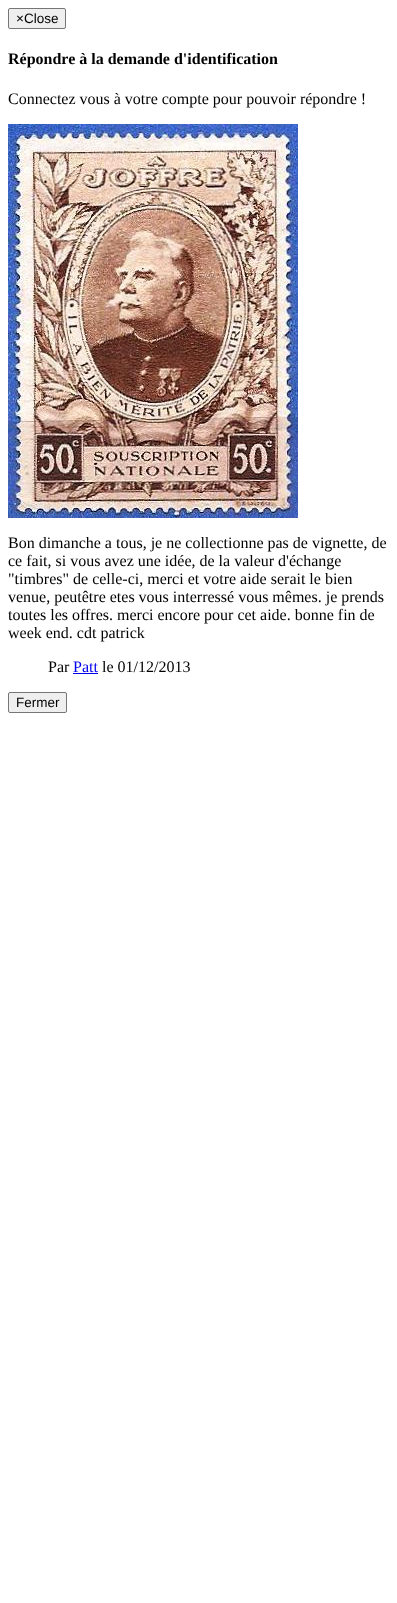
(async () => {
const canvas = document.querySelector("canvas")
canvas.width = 397
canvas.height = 1603
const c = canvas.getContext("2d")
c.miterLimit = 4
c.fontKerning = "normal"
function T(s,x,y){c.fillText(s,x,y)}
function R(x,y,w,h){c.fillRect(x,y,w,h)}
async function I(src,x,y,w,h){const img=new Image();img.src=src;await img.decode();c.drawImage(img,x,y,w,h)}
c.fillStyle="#fff"
R(0,0,397,1603)
c.fillStyle="#efefef"
c.beginPath()
c.roundRect(8.5,8.5,57,20,1.5)
c.fill()
c.strokeStyle="#767676"
c.stroke()
c.font="13.5px Liberation Sans"
c.fillStyle="#000"
T("×Close",16,23)
c.font="bold 16px Liberation Serif"
T("Répondre à la demande d'identification",8,64)
c.font="16px Liberation Serif"
T("Connectez vous à votre compte pour pouvoir répondre !",8,104)
await I("1.png",8,124,290,394)
T("Bon dimanche a tous, je ne collectionne pas de vignette, de",8,548)
T("ce fait, si vous avez une idée, de la valeur d'échange",8,566)
T("\"timbres\" de celle-ci, merci et votre aide serait le bien",8,584)
T("venue, peutêtre etes vous interressé vous mêmes. je prends",8,602)
T("toutes les offres. merci encore pour cet aide. bonne fin de",8,620)
T("week end. cdt patrick",8,638)
T("Par",48,672)
c.fillStyle="#00e"
T("Patt",73,672)
R(73,673,25,1)
c.fillStyle="#000"
T("le 01/12/2013",102,672)
c.fillStyle="#efefef"
c.beginPath()
c.roundRect(8.5,692.5,58,20,1.5)
c.fill()
c.stroke()
c.font="13.5px Liberation Sans"
c.fillStyle="#000"
T("Fermer",16,707)
})()
